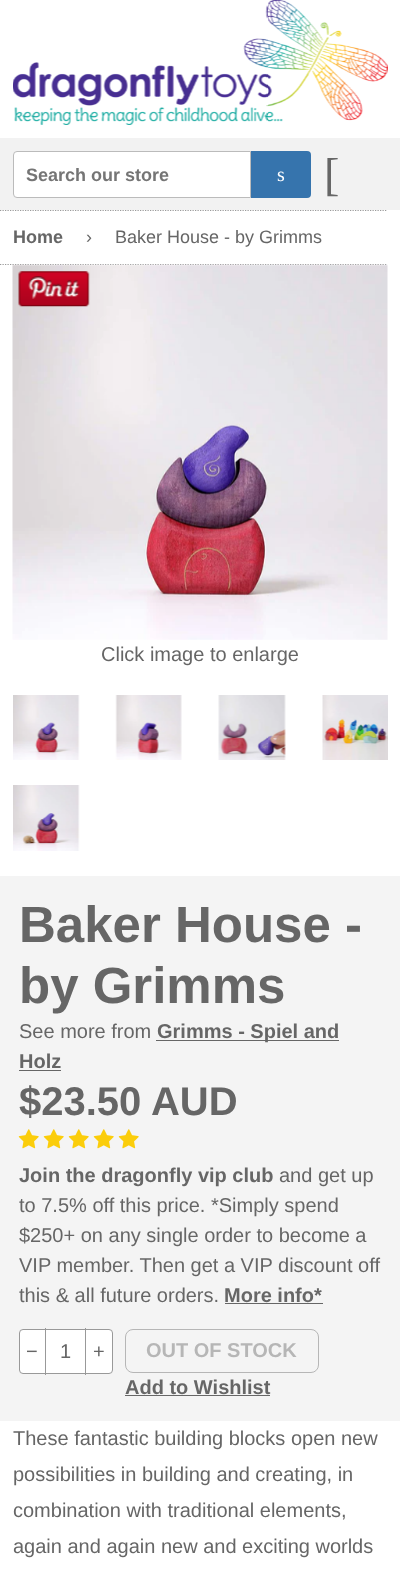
(async () => {
const canvas = document.querySelector("canvas")
canvas.width = 400
canvas.height = 1570
const c = canvas.getContext("2d")
c.miterLimit = 4
c.fontKerning = "normal"
function T(s,x,y){c.fillText(s,x,y)}
function R(x,y,w,h){c.fillRect(x,y,w,h)}
async function I(src,x,y,w,h){const img=new Image();img.src=src;await img.decode();c.drawImage(img,x,y,w,h)}
let path
c.fillStyle="#fff"
R(0,0,400,1570)
await I("1.png",13,0,375,125)
c.fillStyle="#f2f2f2"
R(0,138,400,72)
c.fillStyle="#fff"
c.beginPath()
c.roundRect(13.5,151.5,237,46,[3.5,0,0,3.5])
c.fill()
c.strokeStyle="#bbb"
c.stroke()
c.font="bold 18px Liberation Sans"
c.fillStyle="#757575"
T("Search our store",26,181)
c.fillStyle="#3674ad"
c.beginPath()
c.roundRect(251,151,60,47,[0,4,4,0])
c.fill()
c.font="20px Liberation Serif"
c.fillStyle="#fff"
T("s",277,181)
c.font="46px Liberation Serif"
c.fillStyle="#666"
T("[",324,190)
path = new Path2D("M-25 210.5h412.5")
c.strokeStyle="#999"
c.lineWidth=1.2
c.setLineDash([1.25,1.25])
c.stroke(path)
c.font="bold 18px Liberation Sans"
T("Home",13,243)
c.font="18px Liberation Sans"
T("›",86,243)
T("Baker House - by Grimms",115,243)
path = new Path2D("M-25 264.5h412.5")
c.stroke(path)
await I("2.png",12,264,376,376)
await I("3.png",18,271,72,36)
c.font="20px Liberation Sans"
T("Click image to enlarge",101,661)
await I("4.png",13,695,67,65)
await I("5.png",115,695,67,65)
await I("6.png",218,695,68,65)
await I("7.png",322,695,66,65)
await I("8.png",13,785,67,66)
c.fillStyle="#f4f4f4"
R(0,876,400,545)
c.font="bold 51px Liberation Sans"
c.fillStyle="#666"
T("Baker House -",19,942)
T("by Grimms",19,1003)
c.font="20px Liberation Sans"
T("See more from",19,1038)
R(156,1040,183,1)
c.font="bold 20px Liberation Sans"
T("Grimms - Spiel and",157,1038)
T("Holz",19,1068)
R(19,1070,42,1)
c.font="bold 40px Liberation Sans"
T("$23.50 AUD",19,1115)
await I("9.png",18,1129,21,20)
await I("9.png",43,1129,21,20)
await I("9.png",68,1129,21,20)
await I("9.png",93,1129,21,20)
await I("9.png",118,1129,21,20)
c.font="bold 20px Liberation Sans"
T("Join the dragonfly vip club",19,1182)
c.font="20px Liberation Sans"
T("and get up",279,1182)
T("to 7.5% off this price. *Simply spend",19,1212)
T("$250+ on any single order to become a",19,1242)
T("VIP member. Then get a VIP discount off",19,1272)
T("this & all future orders.",19,1302)
c.font="bold 20px Liberation Sans"
T("More info*",224,1302)
R(225,1303,98,1)
c.fillStyle="#fff"
c.beginPath()
c.roundRect(19.5,1329.5,93,44,3.5)
c.fill()
c.lineWidth=1
c.setLineDash([])
c.stroke()
c.fillStyle="#999"
R(45,1328,1,47)
c.font="20px Liberation Sans"
c.fillStyle="#666"
T("−",26,1358)
T("1",60,1358)
c.fillStyle="#999"
R(85,1328,1,47)
c.fillStyle="#666"
T("+",93,1358)
c.beginPath()
c.roundRect(125.5,1329.5,193,43,7.5)
c.strokeStyle="#b6b6b6"
c.stroke()
c.font="bold 20px Liberation Sans"
c.fillStyle="#b6b6b6"
T("OUT OF STOCK",146,1357)
c.fillStyle="#666"
T("Add to Wishlist",125,1394)
R(125,1395,145,1)
c.font="20px Liberation Sans"
T("These fantastic building blocks open new",13,1445)
T("possibilities in building and creating, in",13,1481)
T("combination with traditional elements,",13,1517)
T("again and again new and exciting worlds",13,1553)
})()
